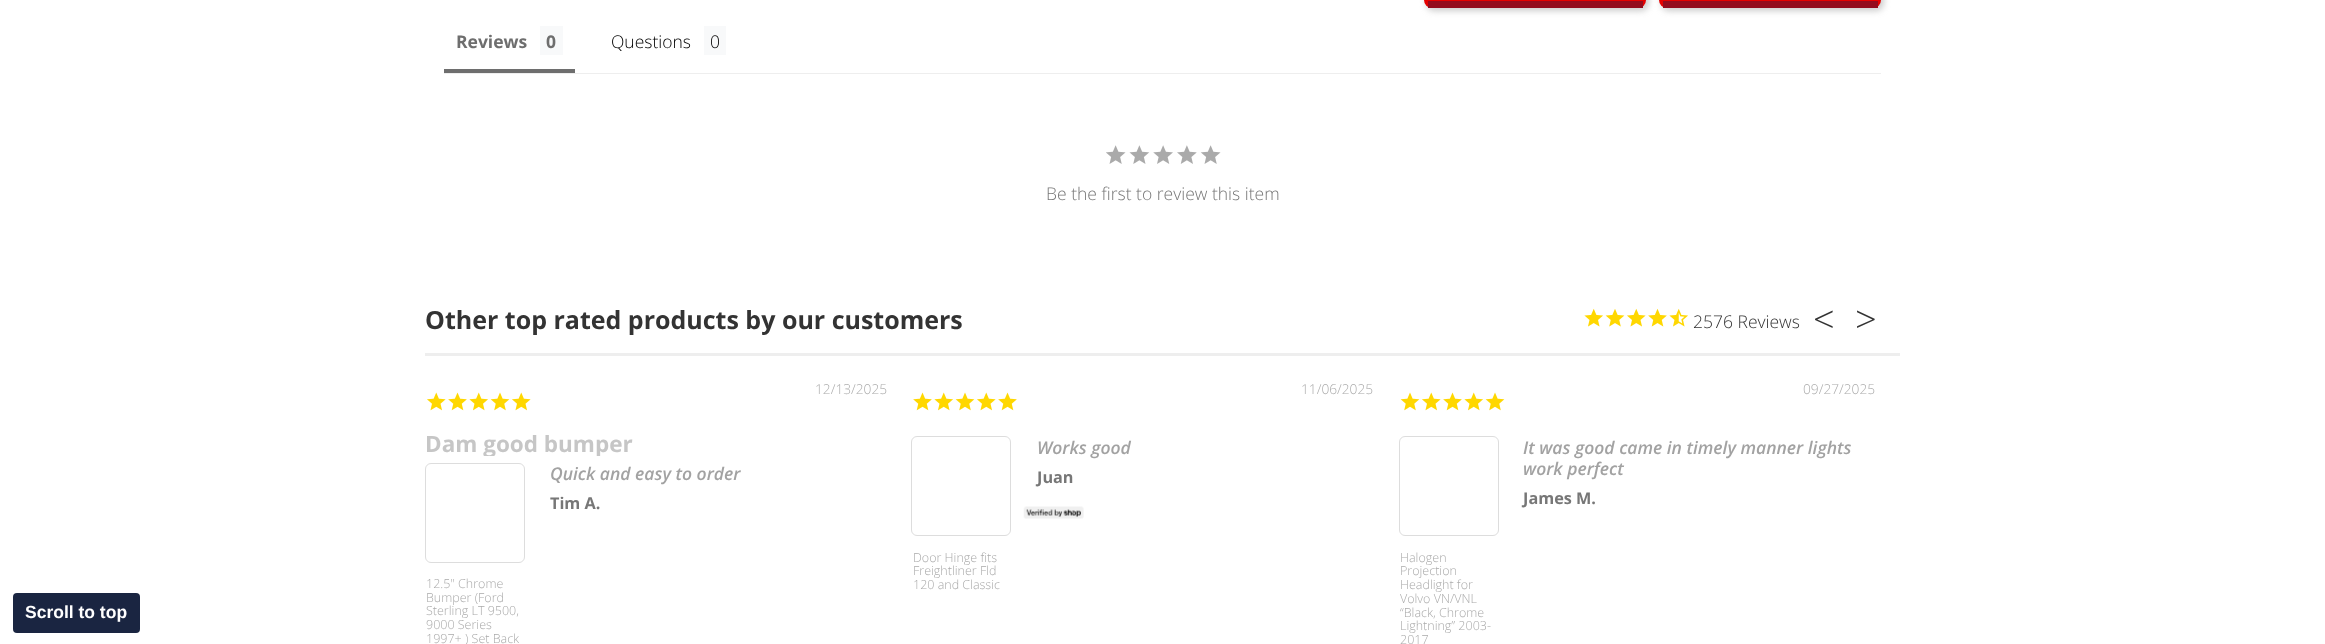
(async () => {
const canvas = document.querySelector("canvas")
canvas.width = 2325
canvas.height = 644
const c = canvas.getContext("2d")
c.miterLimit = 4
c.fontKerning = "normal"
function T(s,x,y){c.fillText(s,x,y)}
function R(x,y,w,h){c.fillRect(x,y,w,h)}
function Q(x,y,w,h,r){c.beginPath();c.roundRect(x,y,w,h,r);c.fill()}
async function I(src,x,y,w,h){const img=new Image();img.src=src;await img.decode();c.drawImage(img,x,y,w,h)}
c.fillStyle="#fff"
R(0,0,2325,644)
c.fillStyle="#1a2541"
Q(13,593,127,40,4)
c.font="bold 17.5px Liberation Sans"
c.fillStyle="#fff"
T("Scroll to top",25,618)
c.fillStyle="#8888886b"
c.filter="blur(3px)"
c.beginPath()
c.roundRect(1426,-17,223,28,8)
c.fill()
c.filter="none"
c.fillStyle="#e60000"
Q(1424,-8,222,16,8)
c.fillStyle="#940b1d"
R(1428,1,215,7)
c.fillStyle="#8888886b"
c.filter="blur(3px)"
c.beginPath()
c.roundRect(1661,-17,223,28,8)
c.fill()
c.filter="none"
c.fillStyle="#e60000"
Q(1659,-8,222,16,8)
c.fillStyle="#940b1d"
R(1663,1,215,7)
c.fillStyle="#eee"
R(444,73,1437,1)
c.fillStyle="#6e6e6e"
R(444,69,131,4)
c.font="bold 17.5px Open Sans"
T("Reviews",456,48)
c.fillStyle="#f8f9fa"
R(540,26,23,29)
c.fillStyle="#6e6e6e"
T("0",546,48)
c.font="300 17.5px Open Sans"
c.fillStyle="#000"
T("Questions",611,48)
c.fillStyle="#f8f9fa"
R(704,26,22,29)
c.fillStyle="#000"
T("0",710,48)
await I("1.png",1106,145,115,19)
c.fillStyle="#777"
T("Be the first to review this item",1046,200)
c.font="bold 25px Open Sans"
c.fillStyle="#333"
T("Other top rated products by our customers",425,329)
await I("2.png",1584,308,19,19)
await I("3.png",1605,309,20,18)
await I("4.png",1627,308,19,19)
await I("5.png",1648,308,19,19)
await I("6.png",1669,308,19,19)
c.font="300 17.5px Open Sans"
T("2576 Reviews",1693,328)
c.font="300 38px Open Sans"
T("<",1813,333)
T(">",1855,333)
c.fillStyle="#eee"
R(425,353,1475,3)
c.font="300 13.75px Open Sans"
c.fillStyle="#aaa"
T("12/13/2025",815,394)
await I("7.png",427,392,19,19)
await I("8.png",448,392,19,19)
await I("9.png",469,392,19,19)
await I("10.png",490,392,20,19)
await I("7.png",512,392,19,19)
c.save()
c.beginPath()
c.rect(425,430,461,26)
c.clip()
c.font="bold 22.5px Open Sans"
c.fillStyle="#c6c6c6"
T("Dam good bumper",425,452)
c.restore()
c.font="italic 600 17.5px Open Sans"
c.fillStyle="#a2a2a2"
T("Quick and easy to order",550,480)
c.font="bold 16.25px Open Sans"
c.fillStyle="#777"
T("Tim A.",550,509)
c.beginPath()
c.roundRect(425.5,463.5,99,99,5.5)
c.strokeStyle="#ddd"
c.stroke()
c.font="300 12.5px Open Sans"
c.fillStyle="#aaa"
T("12.5\" Chrome",426,588)
T("Bumper (Ford",426,602)
T("Sterling LT 9500,",426,615)
T("9000 Series",426,629)
T("1997+ ) Set Back",426,643)
c.font="300 13.75px Open Sans"
T("11/06/2025",1301,394)
await I("8.png",913,392,19,19)
await I("9.png",934,392,19,19)
await I("10.png",955,392,20,19)
await I("7.png",977,392,19,19)
await I("8.png",998,392,19,19)
c.font="italic 600 17.5px Open Sans"
c.fillStyle="#a2a2a2"
T("Works good",1037,454)
c.font="bold 16.25px Open Sans"
c.fillStyle="#777"
T("Juan",1037,483)
await I("11.png",1023,506,61,13)
c.beginPath()
c.roundRect(911.5,436.5,99,99,5.5)
c.stroke()
c.font="300 12.5px Open Sans"
c.fillStyle="#aaa"
T("Door Hinge fits",913,562)
T("Freightliner Fld",913,575)
T("120 and Classic",913,589)
c.font="300 13.75px Open Sans"
T("09/27/2025",1803,394)
await I("10.png",1400,392,20,19)
await I("7.png",1422,392,19,19)
await I("8.png",1443,392,19,19)
await I("9.png",1464,392,19,19)
await I("10.png",1485,392,20,19)
c.font="italic 600 17.5px Open Sans"
c.fillStyle="#a2a2a2"
T("It was good came in timely manner lights",1523,454)
T("work perfect",1523,475)
c.font="bold 16.25px Open Sans"
c.fillStyle="#777"
T("James M.",1523,504)
c.beginPath()
c.roundRect(1399.5,436.5,99,99,5.5)
c.stroke()
c.font="300 12.5px Open Sans"
c.fillStyle="#aaa"
T("Halogen",1400,562)
T("Projection",1400,575)
T("Headlight for",1400,589)
T("Volvo VN/VNL",1400,603)
T("“Black, Chrome",1400,617)
T("Lightning” 2003-",1400,630)
T("2017",1400,644)
})()
